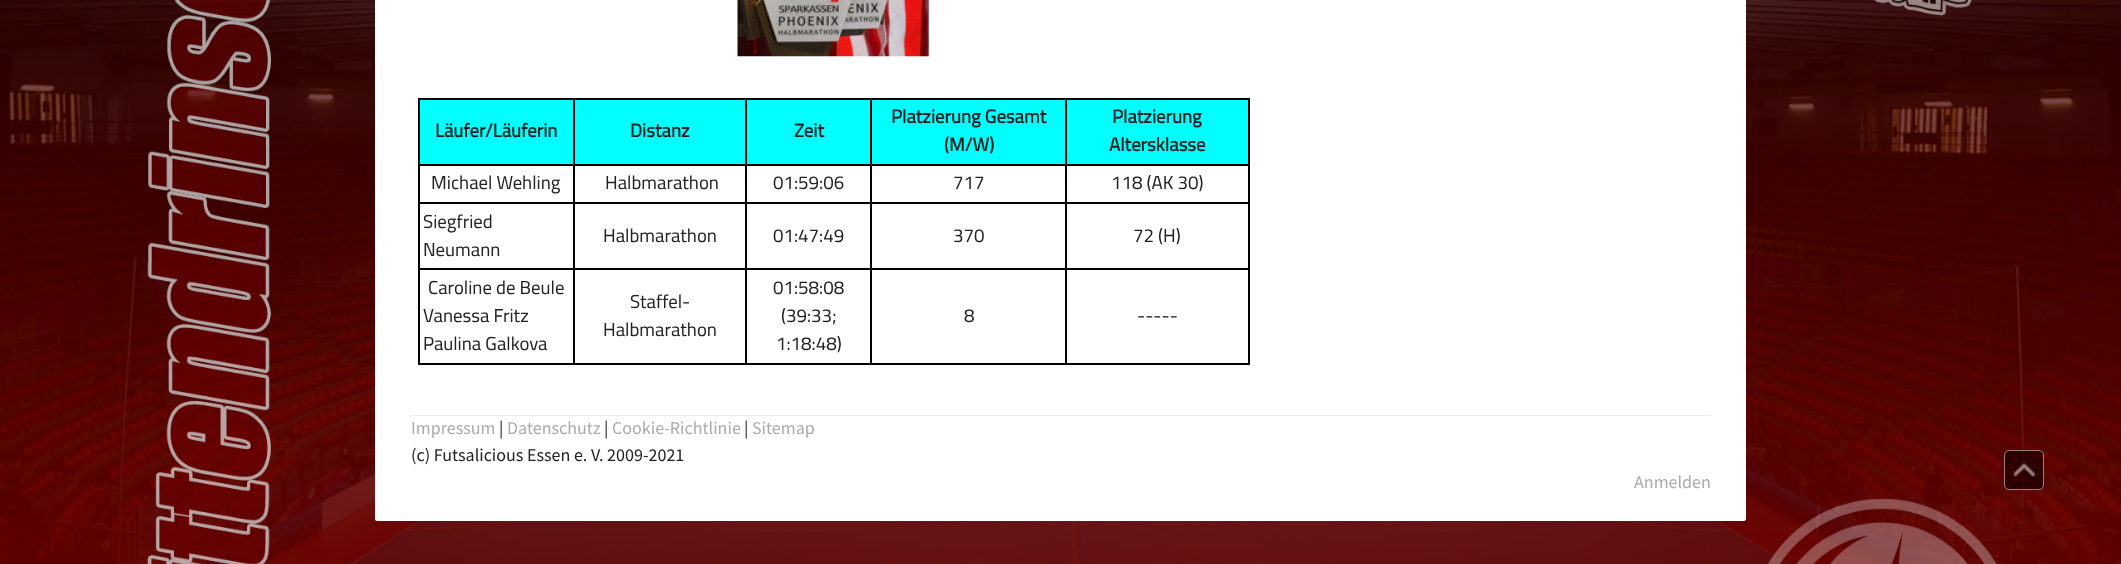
(async () => {
const canvas = document.querySelector("canvas")
canvas.width = 2121
canvas.height = 564
const c = canvas.getContext("2d")
c.miterLimit = 4
c.fontKerning = "normal"
function T(s,x,y){c.fillText(s,x,y)}
function R(x,y,w,h){c.fillRect(x,y,w,h)}
function Q(x,y,w,h,r){c.beginPath();c.roundRect(x,y,w,h,r);c.fill()}
async function I(src,x,y,w,h){const img=new Image();img.src=src;await img.decode();c.drawImage(img,x,y,w,h)}
c.fillStyle="#fff"
R(0,0,2121,564)
await I("1.png",0,0,2121,564)
Q(375,-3,1371,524,2.5)
await I("2.png",737,0,192,57)
c.strokeStyle="#000"
c.strokeRect(418.5,98.5,831,266)
c.fillStyle="#0ff"
c.beginPath()
c.rect(419.5,99.5,154,65)
c.fill()
c.stroke()
c.font="bold 18.75px Cairo"
c.fillStyle="#222"
T("Läufer/Läuferin",435,137)
c.fillStyle="#0ff"
c.beginPath()
c.rect(574.5,99.5,171,65)
c.fill()
c.stroke()
c.fillStyle="#222"
T("Distanz",630,137)
c.fillStyle="#0ff"
c.beginPath()
c.rect(746.5,99.5,124,65)
c.fill()
c.stroke()
c.fillStyle="#222"
T("Zeit",794,137)
c.fillStyle="#0ff"
c.beginPath()
c.rect(871.5,99.5,194,65)
c.fill()
c.stroke()
c.fillStyle="#222"
T("Platzierung Gesamt",891,123)
T("(M/W)",944,151)
c.fillStyle="#0ff"
c.beginPath()
c.rect(1066.5,99.5,182,65)
c.fill()
c.stroke()
c.fillStyle="#222"
T("Platzierung",1112,123)
T("Altersklasse",1109,151)
c.strokeRect(419.5,165.5,154,37)
c.font="18.75px Cairo"
T("Michael Wehling",431,189)
c.strokeRect(574.5,165.5,171,37)
T("Halbmarathon",605,189)
c.strokeRect(746.5,165.5,124,37)
T("01:59:06",773,189)
c.strokeRect(871.5,165.5,194,37)
T("717",953,189)
c.strokeRect(1066.5,165.5,182,37)
T("118 (AK 30)",1111,189)
c.strokeRect(419.5,203.5,154,65)
T("Siegfried",423,228)
T("Neumann",423,256)
c.strokeRect(574.5,203.5,171,65)
T("Halbmarathon",603,242)
c.strokeRect(746.5,203.5,124,65)
T("01:47:49",773,242)
c.strokeRect(871.5,203.5,194,65)
T("370",953,242)
c.strokeRect(1066.5,203.5,182,65)
T("72 (H)",1133,242)
c.strokeRect(419.5,269.5,154,94)
T("Caroline de Beule",428,294)
T("Vanessa Fritz",423,322)
T("Paulina Galkova",423,350)
c.strokeRect(574.5,269.5,171,94)
T("Staffel-",630,308)
T("Halbmarathon",603,336)
c.strokeRect(746.5,269.5,124,94)
T("01:58:08",773,294)
T("(39:33;",781,322)
T("1:18:48)",776,350)
c.strokeRect(871.5,269.5,194,94)
T("8",964,322)
c.strokeRect(1066.5,269.5,182,94)
T("-----",1137,322)
c.fillStyle="#ededed"
R(411,415,1300,1)
c.font="18px Source Sans Pro"
c.fillStyle="#ababab"
T("Impressum",411,434)
c.fillStyle="#222"
T("|",499,434)
c.fillStyle="#ababab"
T("Datenschutz",507,434)
c.fillStyle="#222"
T("|",604,434)
c.fillStyle="#ababab"
T("Cookie-Richtlinie",612,434)
c.fillStyle="#222"
T("|",744,434)
c.fillStyle="#ababab"
T("Sitemap",752,434)
c.fillStyle="#222"
T("(c) Futsalicious Essen e. V. 2009-2021",411,461)
c.fillStyle="#ababab"
T("Anmelden",1634,488)
c.fillStyle="#00000080"
Q(2004,450,40,40,5)
c.beginPath()
c.roundRect(2004.5,450.5,39,39,4.5)
c.strokeStyle="#ffffff80"
c.stroke()
await I("3.png",2013,463,23,14)
})()
